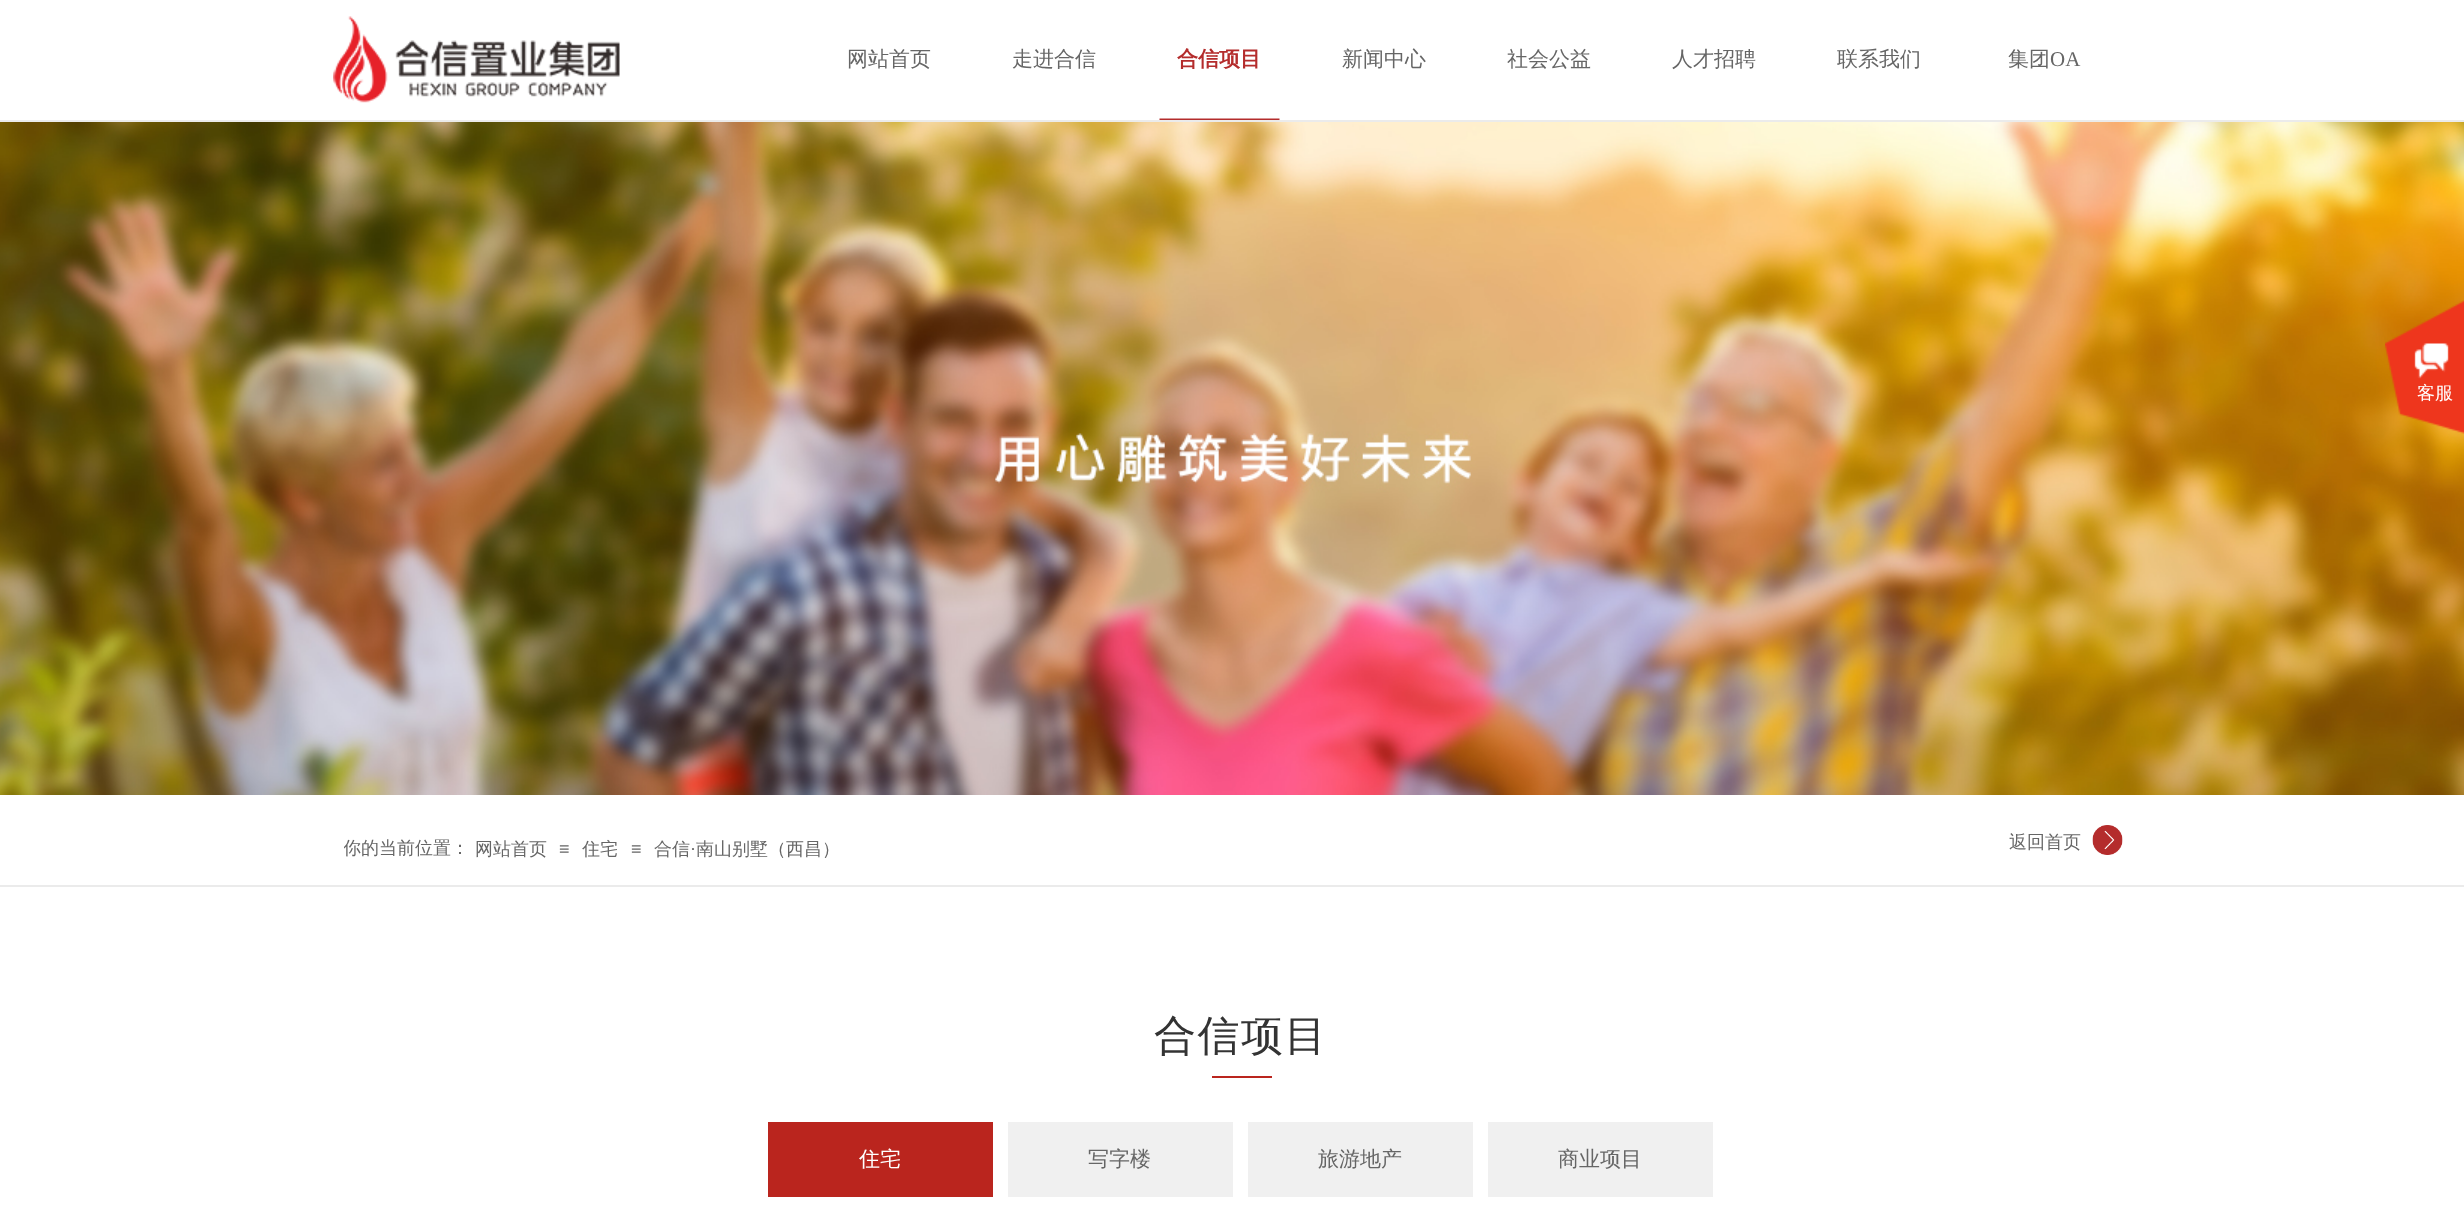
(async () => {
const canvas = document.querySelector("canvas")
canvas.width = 2464
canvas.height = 1207
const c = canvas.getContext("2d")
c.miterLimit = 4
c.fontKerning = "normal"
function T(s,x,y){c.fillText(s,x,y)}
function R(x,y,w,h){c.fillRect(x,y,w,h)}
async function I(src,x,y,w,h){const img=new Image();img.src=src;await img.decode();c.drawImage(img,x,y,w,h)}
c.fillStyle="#fff"
R(0,0,2464,1207)
await I("1.png",333,16,287,87)
c.font="500 21px WenQuanYi Zen Hei"
c.fillStyle="#666"
T("网站首页",847,66)
T("走进合信",1012,66)
await I("2.png",1159,118,121,2)
c.font="bold 21px WenQuanYi Zen Hei"
c.fillStyle="#b42c2c"
T("合信项目",1177,66)
c.font="500 21px WenQuanYi Zen Hei"
c.fillStyle="#666"
T("新闻中心",1342,66)
T("社会公益",1507,66)
T("人才招聘",1672,66)
T("联系我们",1837,66)
T("集团",2008,66)
c.font="21px Liberation Serif"
T("OA",2050,66)
c.fillStyle="#ebebeb"
R(0,120,2464,2)
await I("3.png",0,122,2464,673)
c.save()
c.beginPath()
c.rect(344,836,130,27)
c.clip()
c.font="500 18px WenQuanYi Zen Hei"
c.fillStyle="#666"
T("你的当前位置：",343,854)
c.restore()
c.font="500 18px WenQuanYi Zen Hei"
c.fillStyle="#666"
T("网站首页",475,855)
c.font="18px Liberation Sans"
T("≡",559,855)
c.font="500 18px WenQuanYi Zen Hei"
T("住宅",582,855)
c.font="18px Liberation Sans"
T("≡",631,855)
c.font="500 18px WenQuanYi Zen Hei"
T("合信",654,855)
c.font="18px Liberation Serif"
T("·",690,855)
c.font="500 18px WenQuanYi Zen Hei"
T("南山别墅（西昌）",696,855)
T("返回首页",2009,848)
await I("4.png",2092,825,31,30)
c.fillStyle="#ebebeb"
R(0,885,2464,2)
c.letterSpacing="1.5px"
c.font="500 42px WenQuanYi Zen Hei"
c.fillStyle="#333"
T("合信项目",1154,1050)
c.fillStyle="#ba251e"
R(1212,1076,60,2)
R(768,1122,225,75)
c.letterSpacing="0px"
c.font="500 21px WenQuanYi Zen Hei"
c.fillStyle="#fff"
T("住宅",859,1166)
c.fillStyle="#f0f0f0"
R(1008,1122,225,75)
c.fillStyle="#666"
T("写字楼",1088,1166)
c.fillStyle="#f0f0f0"
R(1248,1122,225,75)
c.fillStyle="#666"
T("旅游地产",1318,1166)
c.fillStyle="#f0f0f0"
R(1488,1122,225,75)
c.fillStyle="#666"
T("商业项目",1558,1166)
await I("5.png",2385,300,79,134)
c.font="500 18px WenQuanYi Zen Hei"
c.fillStyle="#fff"
T("客服",2417,399)
})()
